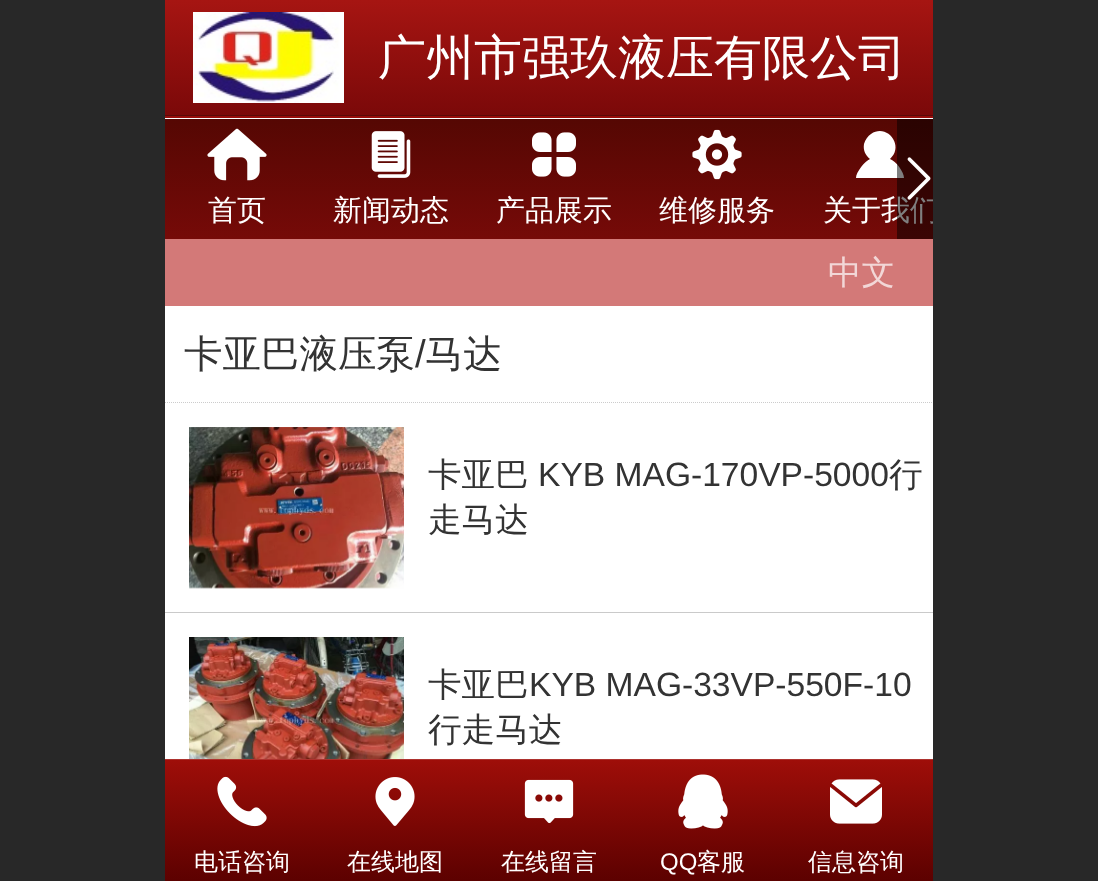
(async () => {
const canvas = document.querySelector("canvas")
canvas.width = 1098
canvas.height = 881
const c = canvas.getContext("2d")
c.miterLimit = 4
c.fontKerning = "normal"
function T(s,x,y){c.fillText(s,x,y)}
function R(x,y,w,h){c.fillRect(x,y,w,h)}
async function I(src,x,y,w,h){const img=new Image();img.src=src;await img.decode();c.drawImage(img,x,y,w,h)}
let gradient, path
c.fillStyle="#fff"
R(0,0,1098,881)
c.fillStyle="#282828"
R(0,0,165,881)
c.fillStyle="#970d0b"
R(165,116,768,2)
gradient = c.createLinearGradient(165,115,165,0)
gradient.addColorStop(0,"#7b0909")
gradient.addColorStop(1,"#a61512")
c.fillStyle = gradient
R(165,0,768,115)
c.fillStyle="#590a08"
R(165,115,768,1)
await I("1.png",193,12,151,91)
c.font="500 48px WenQuanYi Zen Hei"
c.fillStyle="#fff"
T("广州市强玖液压有限公司",378,74)
gradient = c.createLinearGradient(165,239,165,119)
gradient.addColorStop(0,"#760a08")
gradient.addColorStop(1,"#550703")
c.fillStyle = gradient
R(165,119,768,120)
c.fillStyle="#fff"
path = new Path2D("M904 178c0-6-8-17-14-19c15-13-3-36-19-25c-3 2-6 6-7 10c-1 6 1 11 6 15c-5 2-14 13-14 19z")
c.fill(path)
c.font="500 29px WenQuanYi Zen Hei"
T("关于我们",823,220)
c.fillStyle="#00000080"
R(897,119,36,120)
await I("2.png",907,157,24,43)
await I("3.png",207,128,60,53)
c.fillStyle="#fff"
T("首页",208,220)
await I("4.png",371,131,40,47)
T("新闻动态",333,220)
await I("5.png",532,132,44,45)
T("产品展示",496,220)
await I("6.png",692,129,50,51)
T("维修服务",659,220)
c.fillStyle="#d37978"
R(165,239,768,67)
c.font="500 33.6px WenQuanYi Zen Hei"
c.fillStyle="#f2d7d7"
T("中文",828,284)
path = new Path2D("M165 402.5h768")
c.strokeStyle="#ccc"
c.setLineDash([1,1])
c.stroke(path)
c.font="500 38.5px WenQuanYi Zen Hei"
c.fillStyle="#333"
T("卡亚巴液压泵",184,367)
c.font="38.5px Liberation Sans"
T("/",415,367)
c.font="500 38.5px WenQuanYi Zen Hei"
T("马达",425,367)
await I("7.png",189,427,215,162)
c.font="500 33.6px WenQuanYi Zen Hei"
T("卡亚巴",428,486)
c.font="33.6px Liberation Sans"
T("KYB MAG-170VP-5000",538,486)
c.font="500 33.6px WenQuanYi Zen Hei"
T("行",889,486)
T("走马达",428,531)
c.fillStyle="#cacaca"
R(165,612,768,1)
await I("8.png",189,637,215,122)
c.fillStyle="#333"
T("卡亚巴",428,696)
c.font="33.6px Liberation Sans"
T("KYB MAG-33VP-550F-10",529,696)
c.font="500 33.6px WenQuanYi Zen Hei"
T("行走马达",428,741)
gradient = c.createLinearGradient(165,881,165,759)
gradient.addColorStop(0,"#5c0100")
gradient.addColorStop(1,"#9f0e09")
c.fillStyle = gradient
R(165,760,768,121)
c.fillStyle="#ad322e"
R(165,759,768,1)
await I("9.png",217,776,50,51)
c.font="500 24px WenQuanYi Zen Hei"
c.fillStyle="#fff"
T("电话咨询",194,870)
await I("10.png",375,777,40,49)
T("在线地图",347,870)
await I("11.png",524,779,50,45)
T("在线留言",501,870)
await I("12.png",678,774,50,55)
c.font="24px Liberation Sans"
T("QQ",660,870)
c.font="500 24px WenQuanYi Zen Hei"
T("客服",697,870)
await I("13.png",830,779,52,45)
T("信息咨询",808,870)
c.fillStyle="#282828"
R(933,0,165,881)
})()
